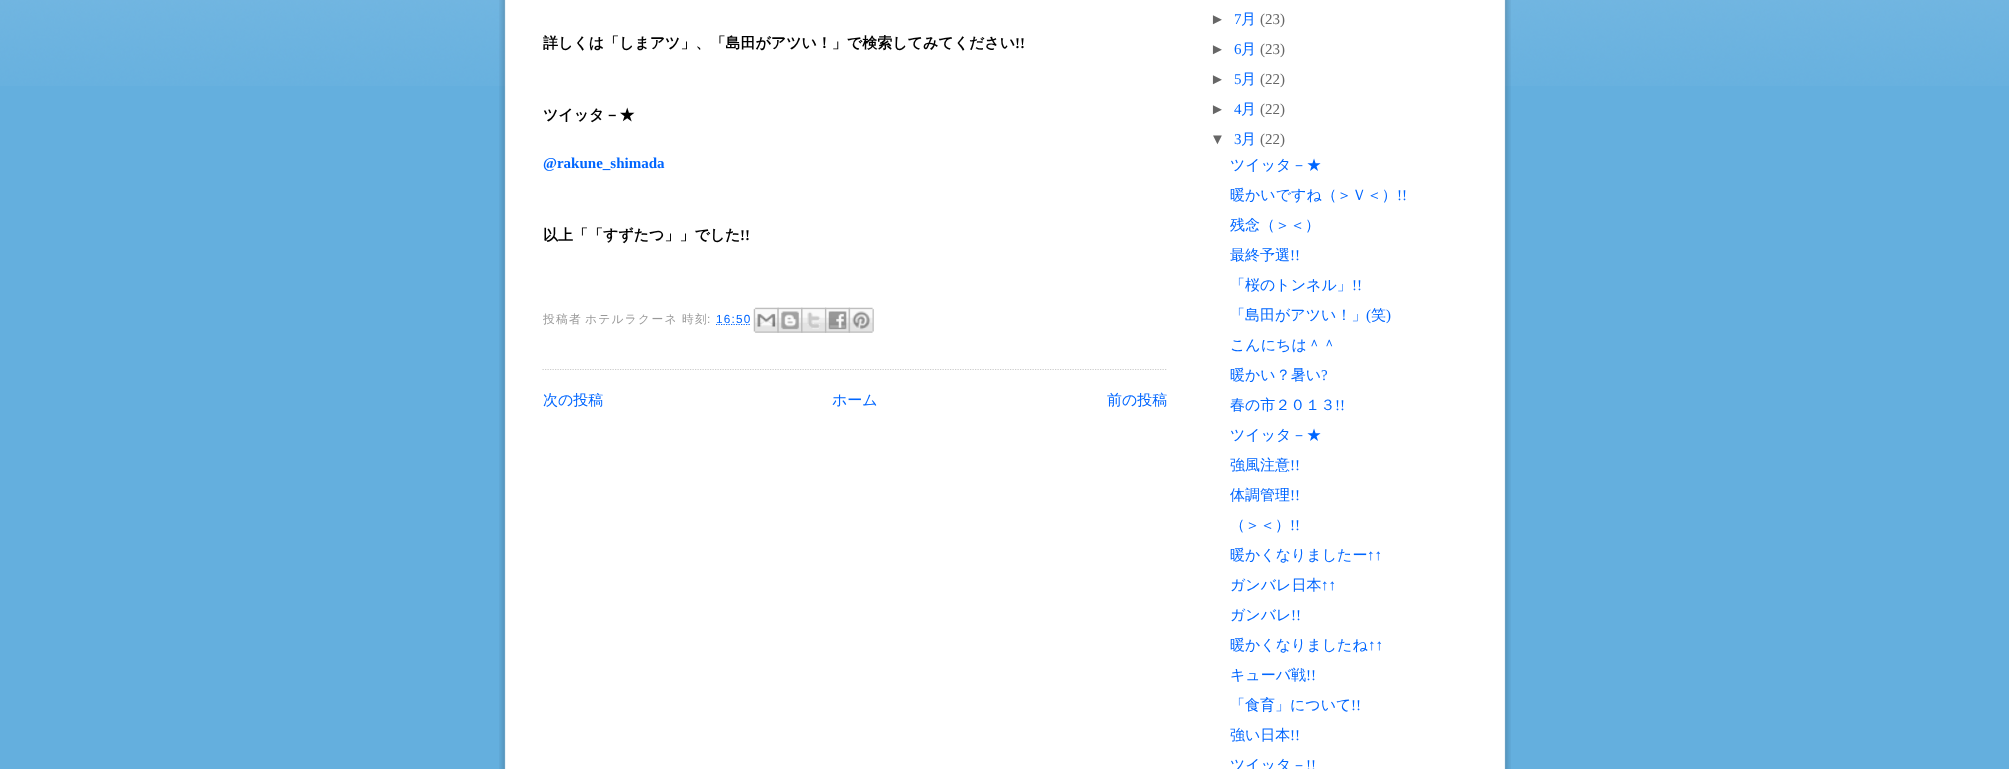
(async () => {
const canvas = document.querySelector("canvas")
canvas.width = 2009
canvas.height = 769
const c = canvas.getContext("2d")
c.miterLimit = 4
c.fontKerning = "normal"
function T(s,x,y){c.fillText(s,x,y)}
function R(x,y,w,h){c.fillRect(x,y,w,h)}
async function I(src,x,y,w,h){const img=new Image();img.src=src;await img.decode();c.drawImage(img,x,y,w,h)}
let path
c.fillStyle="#64afde"
R(0,0,2009,769)
await I("1.png",0,0,2009,86)
await I("2.png",499,0,1012,769)
path = new Path2D("M542.5 369.5h625")
c.strokeStyle="#ccc"
c.lineWidth=1.2
c.setLineDash([1.25,1.25])
c.stroke(path)
c.save()
c.beginPath()
c.rect(543,0,625,468)
c.clip()
c.font="bold 15px WenQuanYi Zen Hei"
c.fillStyle="#000"
T("詳しくは「しまアツ」、「島田がアツい！」で検索してみてください",543,48)
c.restore()
c.font="bold 15px Liberation Serif"
c.fillStyle="#000"
T("!!",1015,48)
c.font="bold 15px WenQuanYi Zen Hei"
T("ツイッタ－★",543,120)
c.font="bold 15px Liberation Serif"
c.fillStyle="#06f"
T("@rakune_shimada",543,168)
c.font="bold 15px WenQuanYi Zen Hei"
c.fillStyle="#000"
T("以上「「すずたつ」」でした",543,240)
c.font="bold 15px Liberation Serif"
T("!!",740,240)
c.save()
c.beginPath()
c.rect(543,0,625,468)
c.clip()
c.letterSpacing="1.25px"
c.font="500 11.75px WenQuanYi Zen Hei"
c.fillStyle="#999"
T("投稿者",543,323)
c.restore()
c.letterSpacing="1.25px"
c.font="500 11.75px WenQuanYi Zen Hei"
c.fillStyle="#999"
T("ホテルラクーネ",585,323)
T("時刻",682,323)
c.font="11.75px Liberation Sans"
T(":",707,323)
path = new Path2D("M716 324.5h35")
c.strokeStyle="#06f"
c.stroke(path)
c.fillStyle="#06f"
T("16:50",716,323)
await I("3.png",753,307,26,26)
await I("4.png",777,307,26,26)
await I("5.png",801,307,26,26)
await I("6.png",825,307,25,26)
await I("7.png",848,307,26,26)
c.save()
c.beginPath()
c.rect(543,393,625,15)
c.clip()
c.letterSpacing="0px"
c.font="500 15px WenQuanYi Zen Hei"
T("次の投稿",543,405)
c.restore()
c.letterSpacing="0px"
c.font="500 15px WenQuanYi Zen Hei"
T("ホーム",832,405)
T("前の投稿",1107,405)
c.font="15px Liberation Sans"
c.fillStyle="#666"
T("►",1210,24)
c.font="15px Liberation Serif"
c.fillStyle="#06f"
T("7",1234,24)
c.font="500 15px WenQuanYi Zen Hei"
T("月",1241,24)
c.font="15px Liberation Serif"
c.fillStyle="#666"
T("(23)",1260,24)
c.font="15px Liberation Sans"
T("►",1210,54)
c.font="15px Liberation Serif"
c.fillStyle="#06f"
T("6",1234,54)
c.font="500 15px WenQuanYi Zen Hei"
T("月",1241,54)
c.font="15px Liberation Serif"
c.fillStyle="#666"
T("(23)",1260,54)
c.font="15px Liberation Sans"
T("►",1210,84)
c.font="15px Liberation Serif"
c.fillStyle="#06f"
T("5",1234,84)
c.font="500 15px WenQuanYi Zen Hei"
T("月",1241,84)
c.font="15px Liberation Serif"
c.fillStyle="#666"
T("(22)",1260,84)
c.font="15px Liberation Sans"
T("►",1210,114)
c.font="15px Liberation Serif"
c.fillStyle="#06f"
T("4",1234,114)
c.font="500 15px WenQuanYi Zen Hei"
T("月",1241,114)
c.font="15px Liberation Serif"
c.fillStyle="#666"
T("(22)",1260,114)
c.font="15px Liberation Sans"
T("▼",1210,144)
c.font="15px Liberation Serif"
c.fillStyle="#06f"
T("3",1234,144)
c.font="500 15px WenQuanYi Zen Hei"
T("月",1241,144)
c.font="15px Liberation Serif"
c.fillStyle="#666"
T("(22)",1260,144)
c.font="500 15px WenQuanYi Zen Hei"
c.fillStyle="#06f"
T("ツイッタ－★",1230,170)
T("暖かいですね（＞Ｖ＜）",1230,200)
c.font="15px Liberation Serif"
T("!!",1397,200)
c.font="500 15px WenQuanYi Zen Hei"
T("残念（＞＜）",1230,230)
T("最終予選",1230,260)
c.font="15px Liberation Serif"
T("!!",1290,260)
c.font="500 15px WenQuanYi Zen Hei"
T("「桜のトンネル」",1230,290)
c.font="15px Liberation Serif"
T("!!",1352,290)
c.font="500 15px WenQuanYi Zen Hei"
T("「島田がアツい！」",1230,320)
c.font="15px Liberation Serif"
T("(",1366,320)
c.font="500 15px WenQuanYi Zen Hei"
T("笑",1371,320)
c.font="15px Liberation Serif"
T(")",1386,320)
c.font="500 15px WenQuanYi Zen Hei"
T("こんにちは＾＾",1230,350)
T("暖かい？暑い",1230,380)
c.font="15px Liberation Serif"
T("?",1321,380)
c.font="500 15px WenQuanYi Zen Hei"
T("春の市２０１３",1230,410)
c.font="15px Liberation Serif"
T("!!",1335,410)
c.font="500 15px WenQuanYi Zen Hei"
T("ツイッタ－★",1230,440)
T("強風注意",1230,470)
c.font="15px Liberation Serif"
T("!!",1290,470)
c.font="500 15px WenQuanYi Zen Hei"
T("体調管理",1230,500)
c.font="15px Liberation Serif"
T("!!",1290,500)
c.font="500 15px WenQuanYi Zen Hei"
T("（＞＜）",1230,530)
c.font="15px Liberation Serif"
T("!!",1290,530)
c.font="500 15px WenQuanYi Zen Hei"
T("暖かくなりましたー",1230,560)
c.font="15px Liberation Serif"
T("↑↑",1367,560)
c.font="500 15px WenQuanYi Zen Hei"
T("ガンバレ日本",1230,590)
c.font="15px Liberation Serif"
T("↑↑",1321,590)
c.font="500 15px WenQuanYi Zen Hei"
T("ガンバレ",1230,620)
c.font="15px Liberation Serif"
T("!!",1291,620)
c.font="500 15px WenQuanYi Zen Hei"
T("暖かくなりましたね",1230,650)
c.font="15px Liberation Serif"
T("↑↑",1368,650)
c.font="500 15px WenQuanYi Zen Hei"
T("キューバ戦",1230,680)
c.font="15px Liberation Serif"
T("!!",1306,680)
c.font="500 15px WenQuanYi Zen Hei"
T("「食育」について",1230,710)
c.font="15px Liberation Serif"
T("!!",1351,710)
c.font="500 15px WenQuanYi Zen Hei"
T("強い日本",1230,740)
c.font="15px Liberation Serif"
T("!!",1290,740)
c.font="500 15px WenQuanYi Zen Hei"
T("ツイッタ－",1230,770)
c.font="15px Liberation Serif"
T("!!",1306,770)
})()
